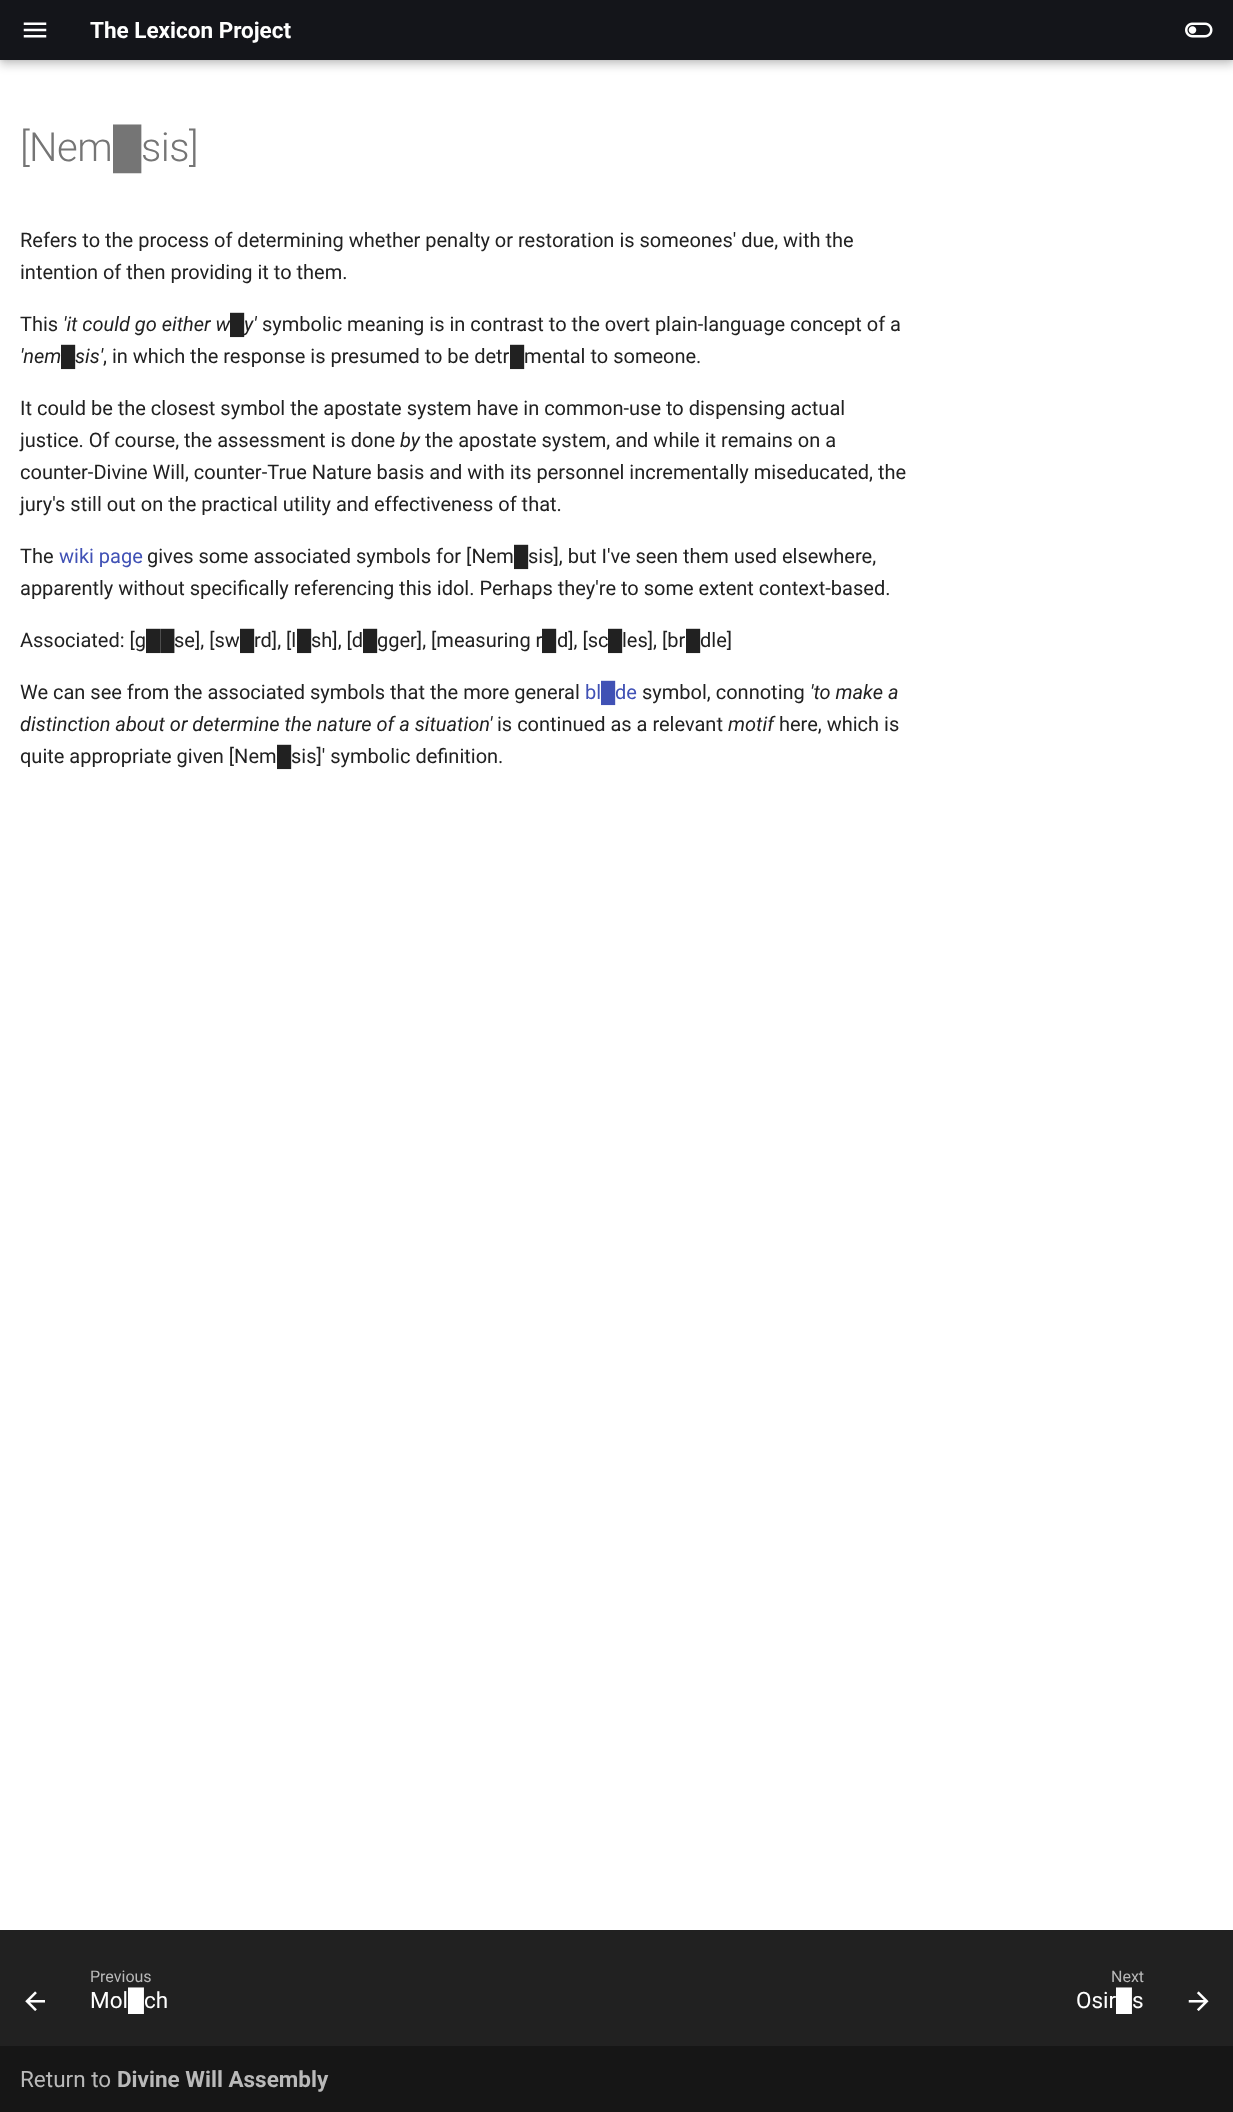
(async () => {
const canvas = document.querySelector("canvas")
canvas.width = 1233
canvas.height = 2112
const c = canvas.getContext("2d")
c.miterLimit = 4
c.fontKerning = "normal"
function T(s,x,y){c.fillText(s,x,y)}
function R(x,y,w,h){c.fillRect(x,y,w,h)}
async function I(src,x,y,w,h){const img=new Image();img.src=src;await img.decode();c.drawImage(img,x,y,w,h)}
c.fillStyle="#fff"
R(0,0,1233,2112)
c.fillStyle="#00000033"
c.filter="blur(5px)"
c.beginPath()
c.rect(0,5,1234,60)
c.fill()
c.filter="none"
c.fillStyle="#0000001a"
c.filter="blur(2.5px)"
c.beginPath()
c.rect(0,0,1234,60)
c.fill()
c.filter="none"
c.fillStyle="#14151a"
R(0,0,1233,60)
await I("1.png",23,22,24,16)
c.font="bold 22.5px Roboto"
c.fillStyle="#fff"
T("The Lexicon Project",90,38)
await I("2.png",1185,22,28,16)
c.letterSpacing="-0.5px"
c.font="300 40px Roboto"
c.fillStyle="#757575"
T("[Nem",20,161)
c.font="40px Liberation Sans"
T("█",113,161)
c.font="300 40px Roboto"
T("sis]",141,161)
c.letterSpacing="0px"
c.font="20px Roboto"
c.fillStyle="#212121"
T("Refers to the process of determining whether penalty or restoration is someones' due, with the",20,247)
T("intention of then providing it to them.",20,279)
T("This",20,331)
c.font="italic 20px Roboto"
T("'it could go either w",63,331)
c.font="italic 20px Liberation Sans"
T("█",230,331)
c.font="italic 20px Roboto"
T("y'",244,331)
c.font="20px Roboto"
T("symbolic meaning is in contrast to the overt plain-language concept of a",262,331)
c.font="italic 20px Roboto"
T("'nem",20,363)
c.font="italic 20px Liberation Sans"
T("█",61,363)
c.font="italic 20px Roboto"
T("sis'",75,363)
c.font="20px Roboto"
T(", in which the response is presumed to be detr",103,363)
c.font="20px Liberation Sans"
T("█",510,363)
c.font="20px Roboto"
T("mental to someone.",524,363)
T("It could be the closest symbol the apostate system have in common-use to dispensing actual",20,415)
T("justice. Of course, the assessment is done",20,447)
c.font="italic 20px Roboto"
T("by",400,447)
c.font="20px Roboto"
T("the apostate system, and while it remains on a",425,447)
T("counter-Divine Will, counter-True Nature basis and with its personnel incrementally miseducated, the",20,479)
T("jury's still out on the practical utility and effectiveness of that.",20,511)
T("The",20,563)
c.fillStyle="#4051b5"
T("wiki page",59,563)
c.fillStyle="#212121"
T("gives some associated symbols for [Nem",147,563)
c.font="20px Liberation Sans"
T("█",514,563)
c.font="20px Roboto"
T("sis], but I've seen them used elsewhere,",528,563)
T("apparently without specifically referencing this idol. Perhaps they're to some extent context-based.",20,595)
T("Associated: [g",20,647)
c.font="20px Liberation Sans"
T("██",146,647)
c.font="20px Roboto"
T("se], [sw",174,647)
c.font="20px Liberation Sans"
T("█",240,647)
c.font="20px Roboto"
T("rd], [l",254,647)
c.font="20px Liberation Sans"
T("█",297,647)
c.font="20px Roboto"
T("sh], [d",311,647)
c.font="20px Liberation Sans"
T("█",363,647)
c.font="20px Roboto"
T("gger], [measuring r",377,647)
c.font="20px Liberation Sans"
T("█",542,647)
c.font="20px Roboto"
T("d], [sc",557,647)
c.font="20px Liberation Sans"
T("█",608,647)
c.font="20px Roboto"
T("les], [br",622,647)
c.font="20px Liberation Sans"
T("█",686,647)
c.font="20px Roboto"
T("dle]",700,647)
T("We can see from the associated symbols that the more general",20,699)
c.fillStyle="#4051b5"
T("bl",585,699)
c.font="20px Liberation Sans"
T("█",601,699)
c.font="20px Roboto"
T("de",615,699)
c.fillStyle="#212121"
T("symbol, connoting",642,699)
c.font="italic 20px Roboto"
T("'to make a",810,699)
T("distinction about or determine the nature of a situation'",20,731)
c.font="20px Roboto"
T("is continued as a relevant",497,731)
c.font="italic 20px Roboto"
T("motif",728,731)
c.font="20px Roboto"
T("here, which is",779,731)
T("quite appropriate given [Nem",20,763)
c.font="20px Liberation Sans"
T("█",277,763)
c.font="20px Roboto"
T("sis]' symbolic definition.",291,763)
R(0,1930,1233,116)
await I("3.png",25,1991,20,20)
c.font="16px Roboto"
c.fillStyle="#b9b9b9"
T("Previous",90,1982)
c.font="22.5px Roboto"
c.fillStyle="#fff"
T("Mol",90,2008)
c.save()
c.beginPath()
c.rect(90,1986,86,28)
c.clip()
c.font="22.5px Liberation Sans"
T("█",128,2008)
c.restore()
T("ch",144,2008)
c.font="16px Roboto"
c.fillStyle="#b9b9b9"
T("Next",1111,1982)
c.font="22.5px Roboto"
c.fillStyle="#fff"
T("Osir",1076,2008)
c.save()
c.beginPath()
c.rect(1068,1986,76,28)
c.clip()
c.font="22.5px Liberation Sans"
T("█",1116,2008)
c.restore()
T("s",1132,2008)
await I("4.png",1188,1991,21,20)
c.fillStyle="#161616"
R(0,2046,1233,66)
c.fillStyle="#b9b9b9"
T("Return to",20,2087)
c.font="bold 22.5px Roboto"
T("Divine Will Assembly",117,2087)
})()
